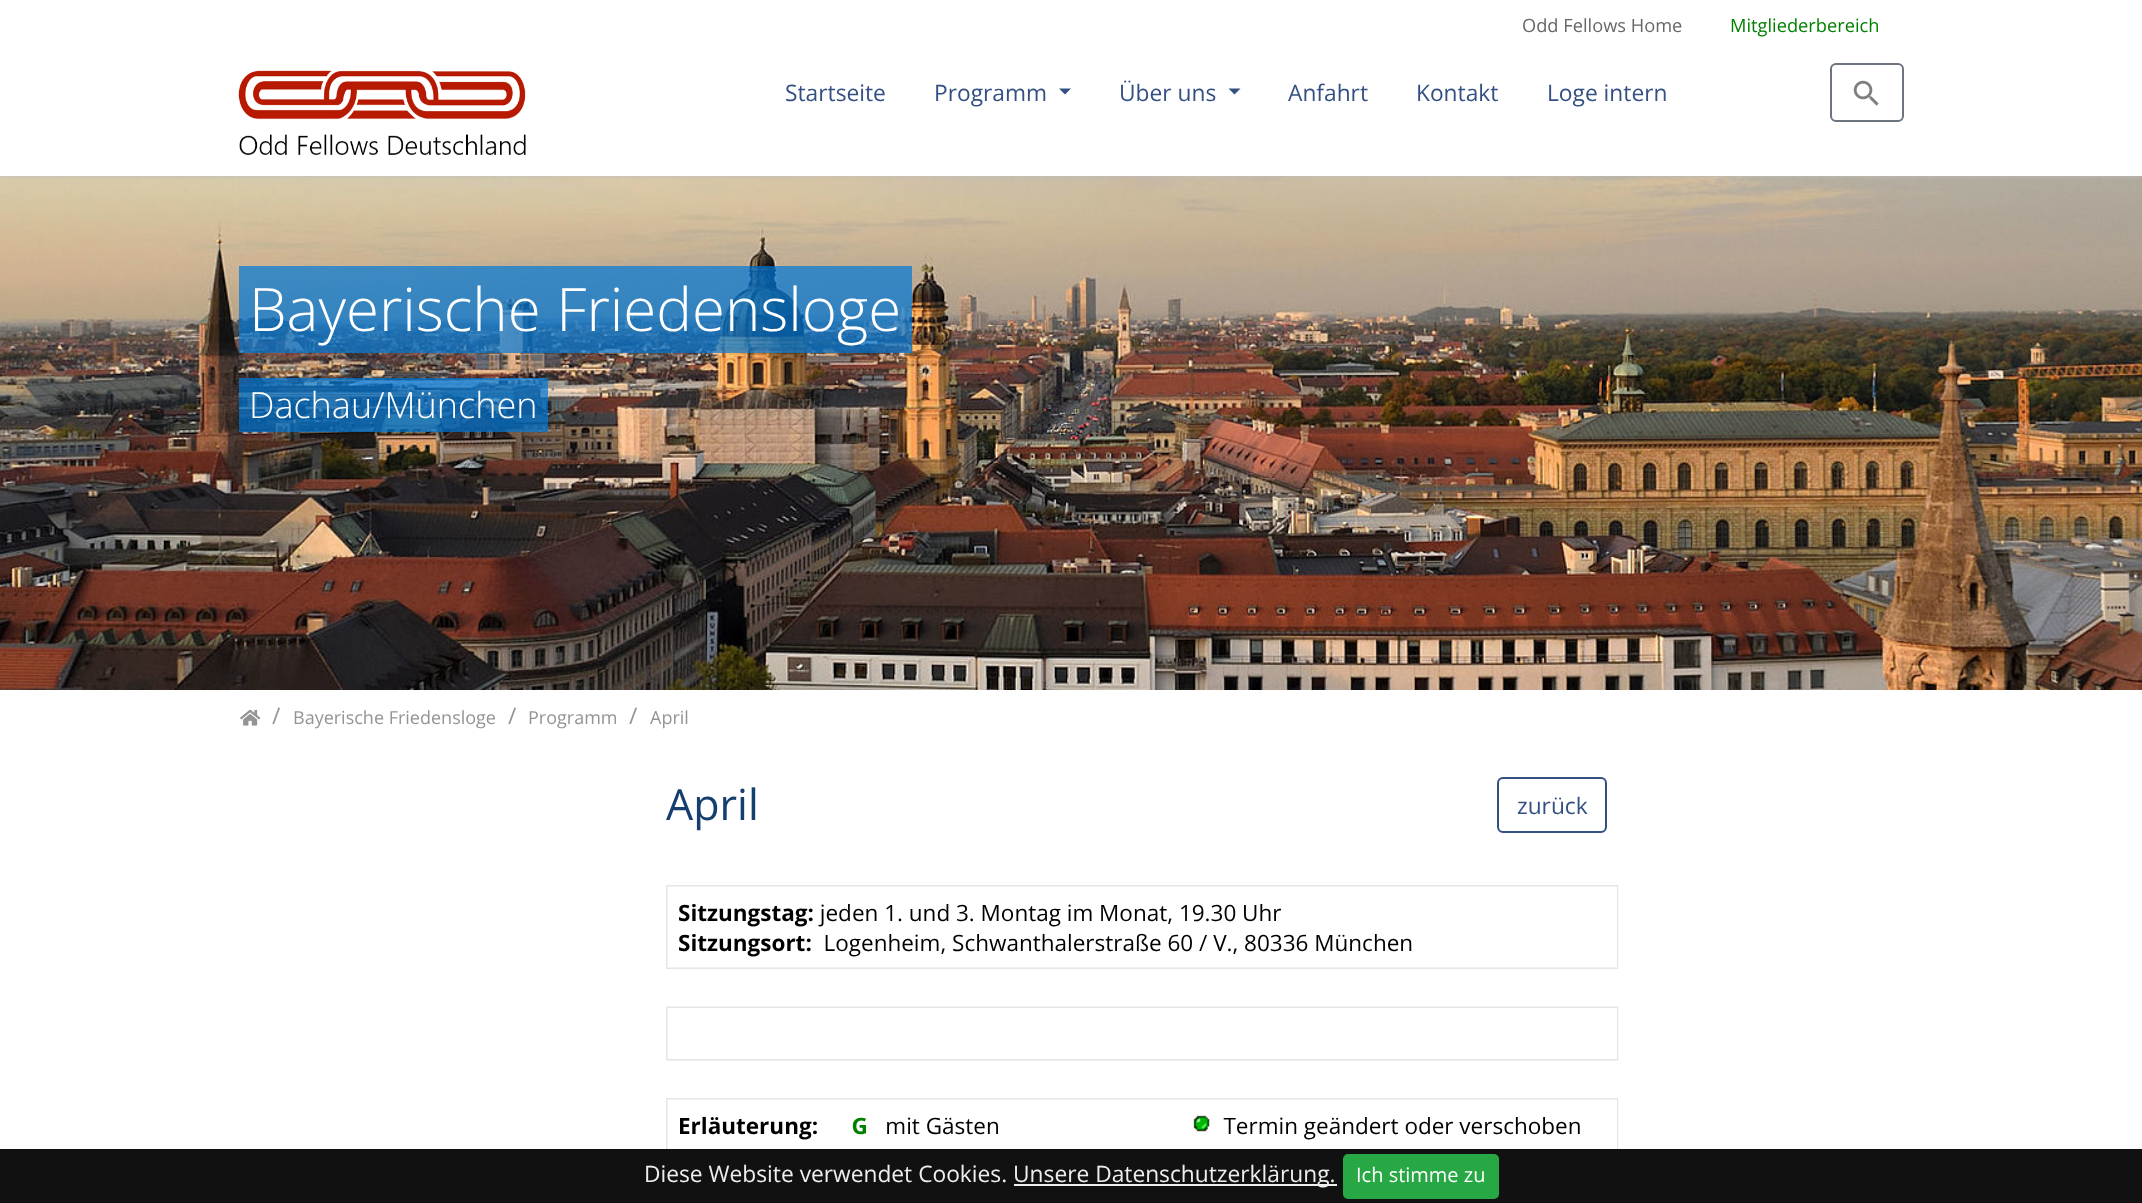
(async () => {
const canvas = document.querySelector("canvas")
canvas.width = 2142
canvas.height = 1203
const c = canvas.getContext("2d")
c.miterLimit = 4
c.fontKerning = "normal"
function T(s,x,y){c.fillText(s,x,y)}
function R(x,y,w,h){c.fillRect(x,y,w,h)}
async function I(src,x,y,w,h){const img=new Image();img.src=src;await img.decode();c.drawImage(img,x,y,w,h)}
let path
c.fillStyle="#fff"
R(0,0,2142,1203)
await I("3.png",0,175,2142,515)
c.save()
path = new Path2D("M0 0h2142v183h-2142zm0 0h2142v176h-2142z")
c.clip(path,"evenodd")
c.fillStyle="#bbb"
c.filter="blur(2px)"
c.beginPath()
c.rect(0,0,2142,176)
c.fill()
c.filter="none"
c.restore()
c.fillStyle="#fffffff5"
R(0,175,2142,1)
c.font="18.25px Open Sans"
c.fillStyle="#666"
T("Odd Fellows Home",1522,32)
c.fillStyle="#008000"
T("Mitgliederbereich",1730,32)
await I("1.png",238,70,288,85)
c.font="22.75px Open Sans"
c.fillStyle="#345082"
T("Startseite",785,101)
T("Programm",934,101)
path = new Path2D("M1059 88.5h12l-6 6z")
c.fill(path)
T("Über uns",1119,101)
path = new Path2D("M1228.5 88.5h12l-6 6z")
c.fill(path)
T("Anfahrt",1288,101)
T("Kontakt",1416,101)
T("Loge intern",1547,101)
c.beginPath()
c.roundRect(1831,64,72,57,5)
c.strokeStyle="#6c757d"
c.lineWidth=2
c.stroke()
await I("2.png",1853,80,26,26)
c.fillStyle="#0078d7b3"
R(239,266,673,87)
c.font="300 60px Open Sans"
c.fillStyle="#fff"
T("Bayerische Friedensloge",249,331)
c.fillStyle="#0078d7b3"
R(239,378,309,54)
c.font="300 36px Open Sans"
c.fillStyle="#fff"
T("Dachau/München",249,418)
await I("4.png",240,709,21,17)
c.font="22.75px Open Sans"
c.fillStyle="#949494"
T("/",272,724)
c.font="18px Open Sans"
T("Bayerische Friedensloge",293,724)
c.font="22.75px Open Sans"
T("/",508,724)
c.font="18px Open Sans"
T("Programm",528,724)
c.font="22.75px Open Sans"
T("/",629,724)
c.font="18px Open Sans"
T("April",650,724)
c.font="43px Open Sans"
c.fillStyle="#143f6e"
T("April",666,820)
c.beginPath()
c.roundRect(1498,778,108,54,5)
c.strokeStyle="#345082"
c.stroke()
c.font="22.75px Open Sans"
c.fillStyle="#345082"
T("zurück",1517,814)
await I("5.png",666,885,953,264)
c.fillStyle="#111"
R(0,1149,2142,54)
c.fillStyle="#eee"
T("Diese Website verwendet Cookies.",644,1182)
R(1014,1184,323,2)
T("Unsere Datenschutzerklärung.",1013,1182)
c.fillStyle="#28a745"
c.beginPath()
c.roundRect(1344,1155,154,43,4)
c.fill()
c.strokeStyle="#28a745"
c.stroke()
c.font="20px Open Sans"
c.fillStyle="#fff"
T("Ich stimme zu",1356,1182)
})()
